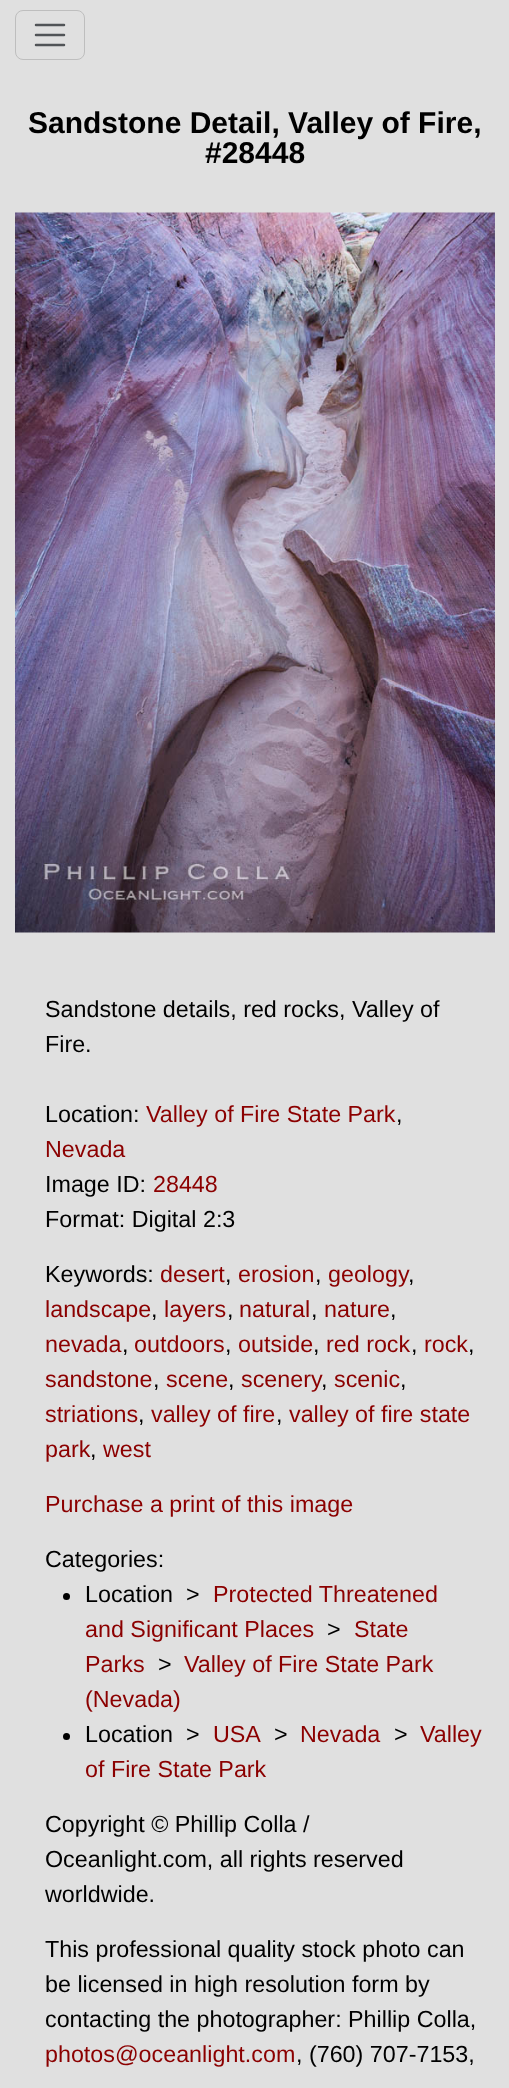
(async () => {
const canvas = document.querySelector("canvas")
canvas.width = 509
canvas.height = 2088
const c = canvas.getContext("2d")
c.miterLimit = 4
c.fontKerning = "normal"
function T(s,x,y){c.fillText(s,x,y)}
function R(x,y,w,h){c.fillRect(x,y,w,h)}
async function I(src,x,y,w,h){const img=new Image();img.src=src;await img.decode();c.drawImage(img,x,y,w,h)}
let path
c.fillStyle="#e0e0e0"
R(0,0,509,2088)
c.beginPath()
c.roundRect(15.5,10.5,69,49,7.5)
c.strokeStyle="#bebebe"
c.stroke()
path = new Path2D("M36 25h28m-28 10h28m-28 10h28")
c.strokeStyle="#515457"
c.lineWidth=2.5
c.lineCap="round"
c.stroke(path)
c.font="bold 30px Liberation Sans"
c.fillStyle="#000"
T("Sandstone Detail, Valley of Fire,",28,133)
T("#28448",205,163)
await I("1.png",15,212,480,721)
c.font="23.3px Liberation Sans"
T("Sandstone details, red rocks, Valley of",45,1017)
T("Fire.",45,1052)
T("Location:",45,1122)
c.fillStyle="#8b0000"
T("Valley of Fire State Park",146,1122)
c.fillStyle="#000"
T(",",396,1122)
c.fillStyle="#8b0000"
T("Nevada",45,1157)
c.fillStyle="#000"
T("Image ID:",45,1192)
c.fillStyle="#8b0000"
T("28448",153,1192)
c.fillStyle="#000"
T("Format: Digital 2:3",45,1227)
T("Keywords:",45,1282)
c.fillStyle="#8b0000"
T("desert",160,1282)
c.fillStyle="#000"
T(",",225,1282)
c.fillStyle="#8b0000"
T("erosion",238,1282)
c.fillStyle="#000"
T(",",315,1282)
c.fillStyle="#8b0000"
T("geology",328,1282)
c.fillStyle="#000"
T(",",408,1282)
c.fillStyle="#8b0000"
T("landscape",45,1317)
c.fillStyle="#000"
T(",",151,1317)
c.fillStyle="#8b0000"
T("layers",164,1317)
c.fillStyle="#000"
T(",",227,1317)
c.fillStyle="#8b0000"
T("natural",239,1317)
c.fillStyle="#000"
T(",",311,1317)
c.fillStyle="#8b0000"
T("nature",324,1317)
c.fillStyle="#000"
T(",",390,1317)
c.fillStyle="#8b0000"
T("nevada",45,1352)
c.fillStyle="#000"
T(",",122,1352)
c.fillStyle="#8b0000"
T("outdoors",134,1352)
c.fillStyle="#000"
T(",",225,1352)
c.fillStyle="#8b0000"
T("outside",238,1352)
c.fillStyle="#000"
T(",",313,1352)
c.fillStyle="#8b0000"
T("red rock",326,1352)
c.fillStyle="#000"
T(",",411,1352)
c.fillStyle="#8b0000"
T("rock",424,1352)
c.fillStyle="#000"
T(",",468,1352)
c.fillStyle="#8b0000"
T("sandstone",45,1387)
c.fillStyle="#000"
T(",",153,1387)
c.fillStyle="#8b0000"
T("scene",166,1387)
c.fillStyle="#000"
T(",",228,1387)
c.fillStyle="#8b0000"
T("scenery",241,1387)
c.fillStyle="#000"
T(",",321,1387)
c.fillStyle="#8b0000"
T("scenic",334,1387)
c.fillStyle="#000"
T(",",400,1387)
c.fillStyle="#8b0000"
T("striations",45,1422)
c.fillStyle="#000"
T(",",138,1422)
c.fillStyle="#8b0000"
T("valley of fire",151,1422)
c.fillStyle="#000"
T(",",276,1422)
c.fillStyle="#8b0000"
T("valley of fire state",289,1422)
T("park",45,1457)
c.fillStyle="#000"
T(",",90,1457)
c.fillStyle="#8b0000"
T("west",103,1457)
T("Purchase a print of this image",45,1512)
c.fillStyle="#000"
T("Categories:",45,1567)
c.beginPath()
c.arc(66.5,1596.5,3.5,0,7)
c.fill()
T("Location  >",85,1602)
c.fillStyle="#8b0000"
T("Protected Threatened",213,1602)
T("and Significant Places",85,1637)
c.fillStyle="#000"
T(">",327,1637)
c.fillStyle="#8b0000"
T("State",354,1637)
T("Parks",85,1672)
c.fillStyle="#000"
T(">",158,1672)
c.fillStyle="#8b0000"
T("Valley of Fire State Park",184,1672)
T("(Nevada)",85,1707)
c.fillStyle="#000"
c.beginPath()
c.arc(66.5,1736.5,3.5,0,7)
c.fill()
T("Location  >",85,1742)
c.fillStyle="#8b0000"
T("USA",213,1742)
c.fillStyle="#000"
T(">",274,1742)
c.fillStyle="#8b0000"
T("Nevada",300,1742)
c.fillStyle="#000"
T(">",394,1742)
c.fillStyle="#8b0000"
T("Valley",420,1742)
T("of Fire State Park",85,1777)
c.fillStyle="#000"
T("Copyright © Phillip Colla /",45,1832)
T("Oceanlight.com, all rights reserved",45,1867)
T("worldwide.",45,1902)
T("This professional quality stock photo can",45,1957)
T("be licensed in high resolution form by",45,1992)
T("contacting the photographer: Phillip Colla,",45,2027)
c.fillStyle="#8b0000"
T("photos@oceanlight.com",45,2062)
c.fillStyle="#000"
T(", (760) 707-7153,",296,2062)
})()
